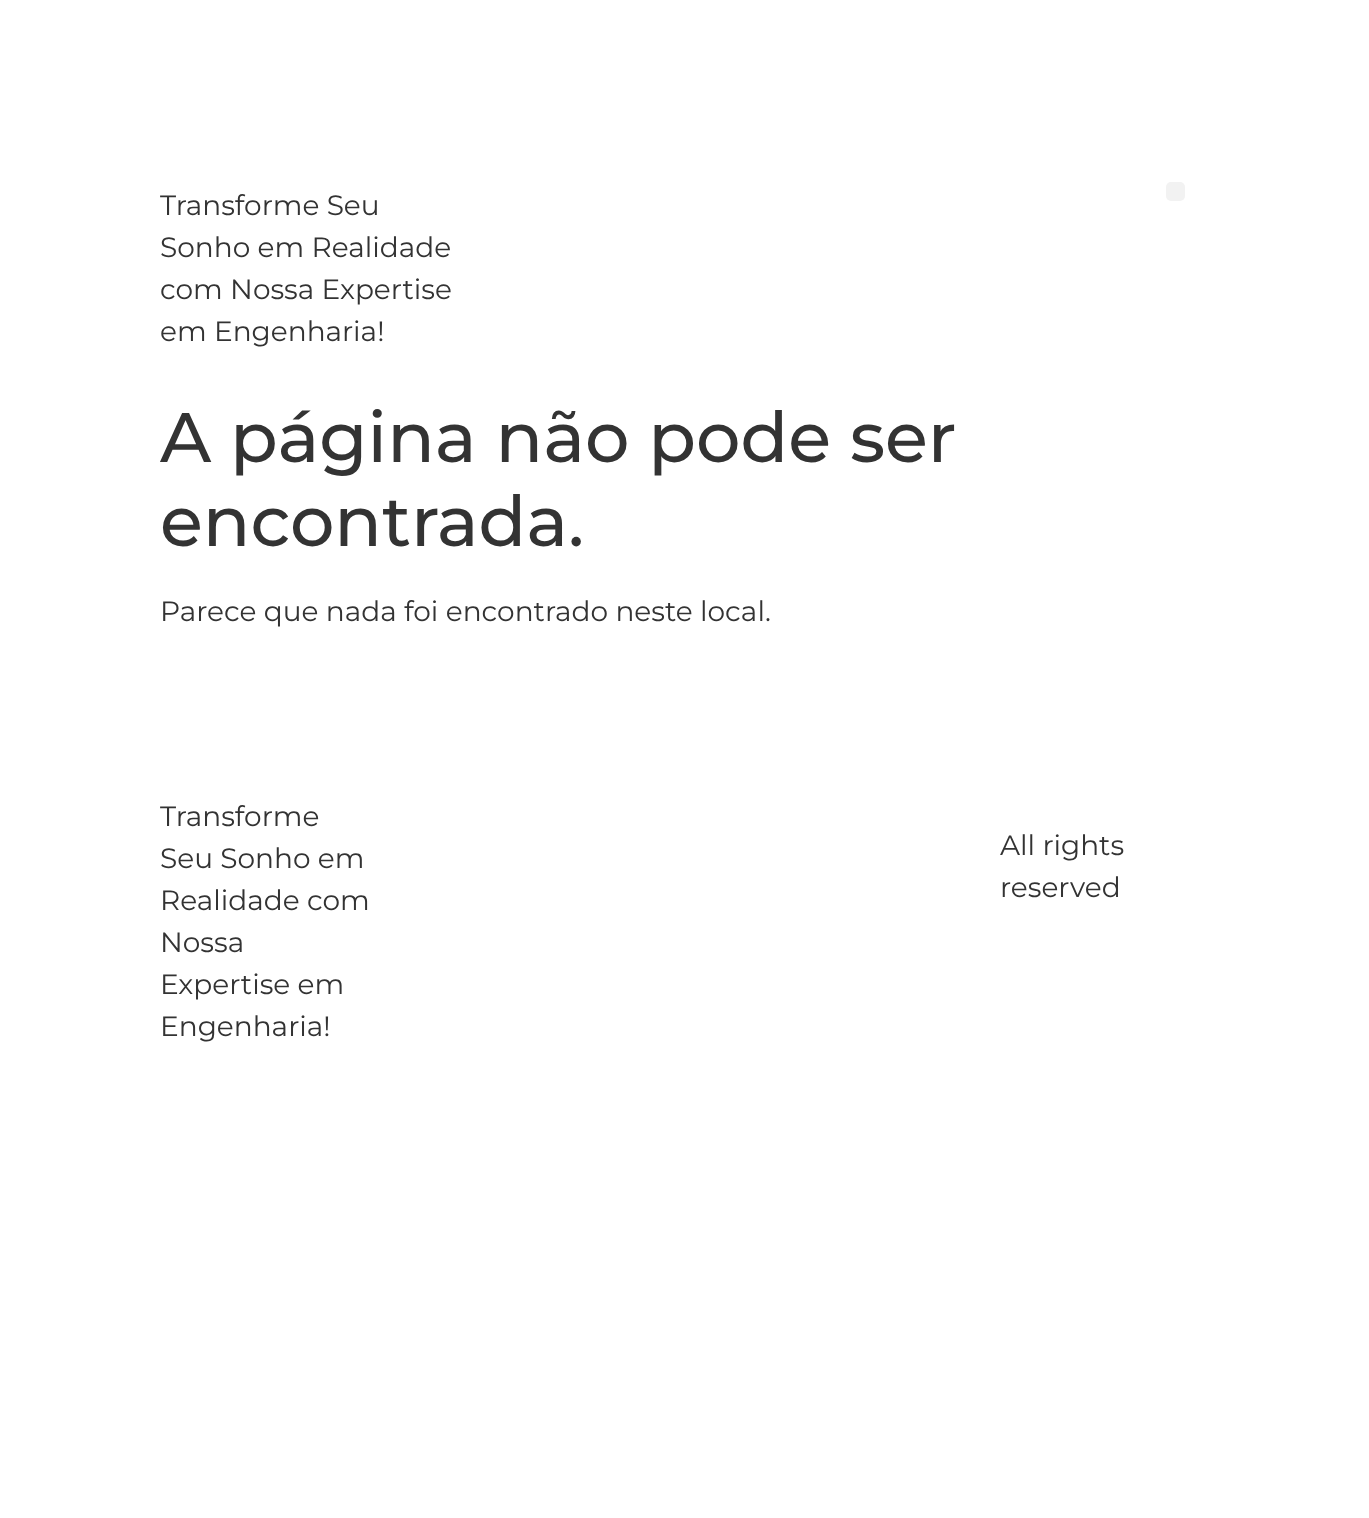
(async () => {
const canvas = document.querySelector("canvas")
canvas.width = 1369
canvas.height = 1518
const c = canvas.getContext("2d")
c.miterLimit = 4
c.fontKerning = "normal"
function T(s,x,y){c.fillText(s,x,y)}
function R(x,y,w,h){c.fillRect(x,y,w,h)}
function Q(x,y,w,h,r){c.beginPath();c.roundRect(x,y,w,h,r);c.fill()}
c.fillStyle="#fff"
R(0,0,1369,1518)
c.fillStyle="#f2f2f2"
Q(1166,182,19,19,5)
c.font="28px Montserrat"
c.fillStyle="#333"
T("Transforme Seu",160,215)
T("Sonho em Realidade",160,257)
T("com Nossa Expertise",160,299)
T("em Engenharia!",160,341)
c.font="500 70px Montserrat"
T("A página não pode ser",160,462)
T("encontrada.",160,546)
c.font="28px Montserrat"
T("Parece que nada foi encontrado neste local.",160,621)
T("Transforme",160,826)
T("Seu Sonho em",160,868)
T("Realidade com",160,910)
T("Nossa",160,952)
T("Expertise em",160,994)
T("Engenharia!",160,1036)
T("All rights",1000,855)
T("reserved",1000,897)
})()
